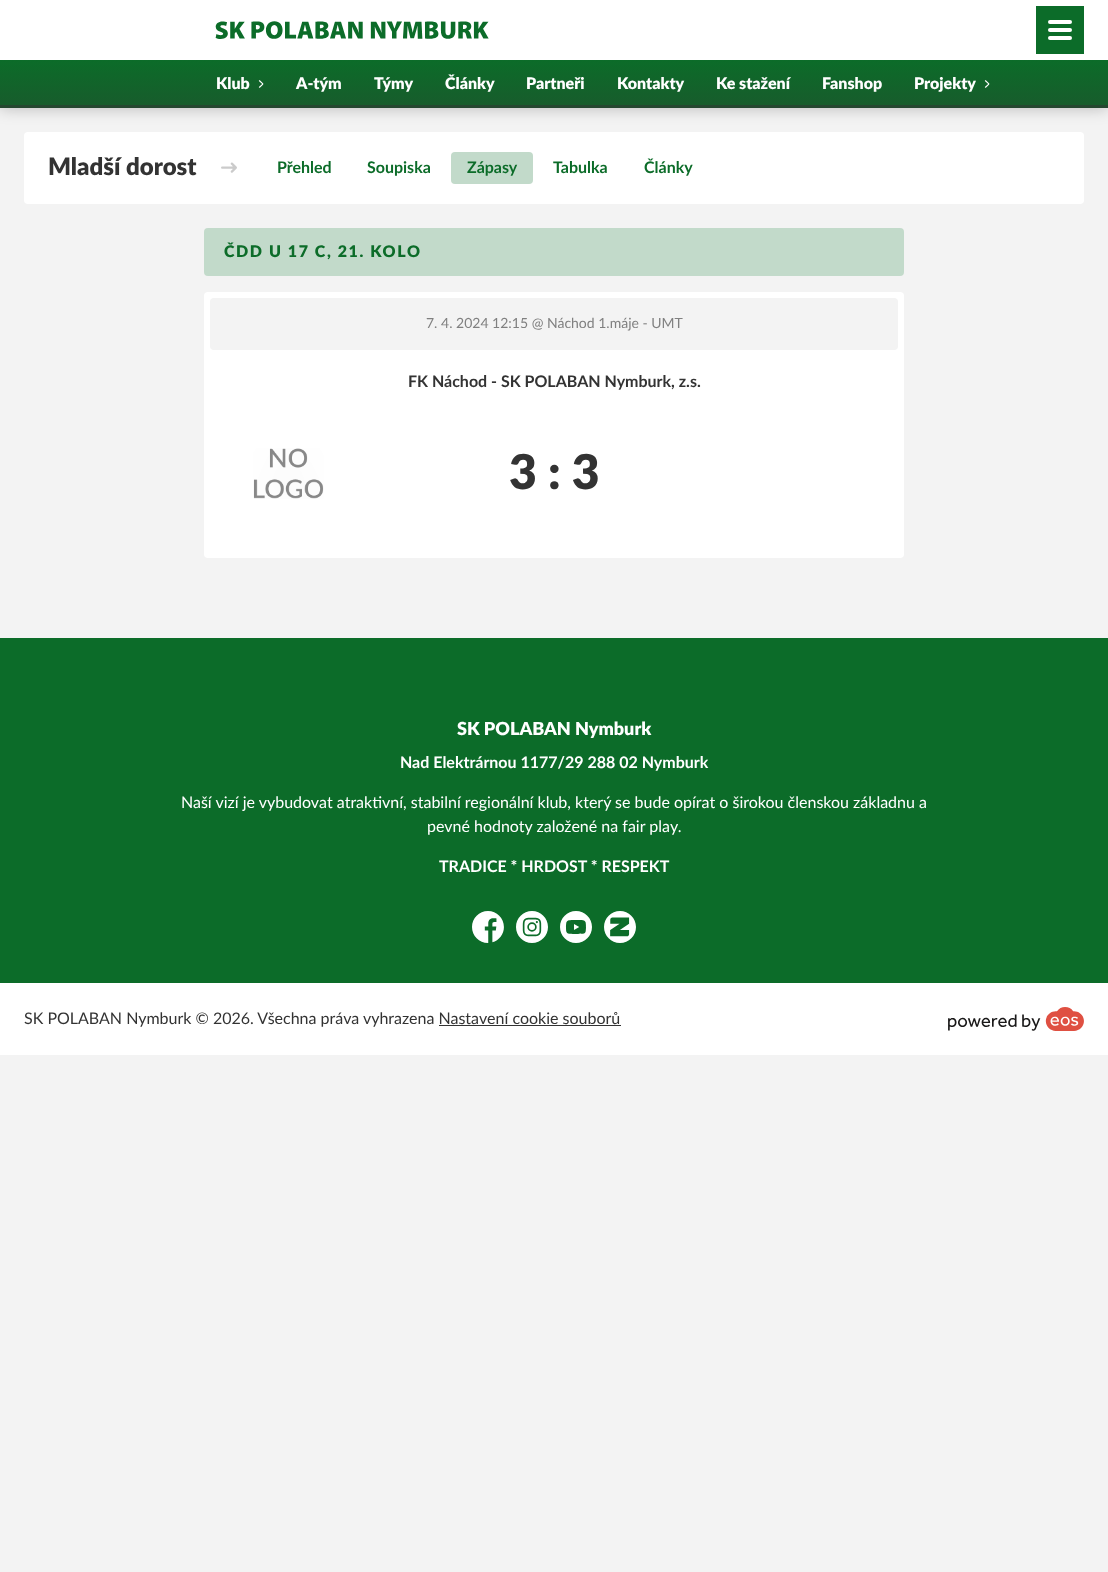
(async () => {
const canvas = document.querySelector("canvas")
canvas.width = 1108
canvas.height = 1572
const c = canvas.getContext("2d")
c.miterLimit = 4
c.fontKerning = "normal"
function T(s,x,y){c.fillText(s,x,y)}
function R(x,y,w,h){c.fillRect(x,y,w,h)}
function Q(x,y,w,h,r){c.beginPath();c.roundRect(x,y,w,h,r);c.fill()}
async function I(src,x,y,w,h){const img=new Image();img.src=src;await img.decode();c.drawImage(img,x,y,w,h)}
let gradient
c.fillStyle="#f3f3f3"
R(0,0,1108,1572)
c.fillStyle="#fff"
Q(24,132,1060,72,4)
c.fillStyle="#00000040"
c.filter="blur(8px)"
c.beginPath()
c.rect(0,0,1108,108)
c.fill()
c.filter="none"
c.fillStyle="#fff"
R(0,0,1108,60)
gradient = c.createLinearGradient(554,60,554,108)
gradient.addColorStop(0,"#0c6c29")
gradient.addColorStop(1,"#185b2c")
c.fillStyle = gradient
R(0,60,1108,45)
c.fillStyle="#254730"
R(0,105,1108,3)
await I("1.png",215,21,274,18)
c.fillStyle="#0c6c29"
R(1036,6,48,48)
c.fillStyle="#fff"
Q(1048,20,24,4,2)
Q(1048,28,24,4,2)
Q(1048,36,24,4,2)
c.font="900 16px Lato"
T("Klub",216,89)
await I("2.png",258,80,6,8)
T("A-tým",296,89)
T("Týmy",374,89)
T("Články",445,89)
T("Partneři",526,89)
T("Kontakty",617,89)
T("Ke stažení",716,89)
T("Fanshop",822,89)
T("Projekty",914,89)
await I("2.png",984,80,6,8)
c.font="900 24px Lato"
c.fillStyle="#333"
T("Mladší dorost",48,175)
await I("3.png",221,162,16,11)
c.font="bold 16px Lato"
c.fillStyle="#0c6c29"
T("Přehled",277,173)
T("Soupiska",367,173)
c.fillStyle="#c2daca"
Q(451,152,82,32,4)
c.fillStyle="#0c6c29"
T("Zápasy",467,173)
T("Tabulka",553,173)
T("Články",644,173)
c.fillStyle="#c2daca"
Q(204,228,700,48,4)
c.letterSpacing="1.6px"
c.font="900 16px Lato"
c.fillStyle="#0c6c29"
T("ČDD U 17 C, 21. KOLO",224,257)
c.fillStyle="#fff"
Q(204,292,700,266,4)
c.fillStyle="#f3f3f3"
Q(210,298,688,52,4)
c.letterSpacing="0px"
c.font="14px Lato"
c.fillStyle="#808080"
T("7. 4. 2024 12:15 @ Náchod 1.máje - UMT",426,328)
c.font="bold 16px Lato"
c.fillStyle="#333"
T("FK Náchod - SK POLABAN Nymburk, z.s.",408,387)
await I("4.png",253,448,71,51)
c.font="900 48px Lato"
T("3 : 3",509,489)
c.fillStyle="#0c6c29"
R(0,638,1108,345)
c.font="900 18px Lato"
c.fillStyle="#fff"
T("SK POLABAN Nymburk",457,735)
c.font="bold 16px Lato"
T("Nad Elektrárnou 1177/29 288 02 Nymburk",400,768)
c.font="16px Lato"
T("Naší vizí je vybudovat atraktivní, stabilní regionální klub, který se bude opírat o širokou členskou základnu a",181,808)
T("pevné hodnoty založené na fair play.",427,832)
c.font="bold 16px Lato"
T("TRADICE * HRDOST * RESPEKT",439,872)
await I("5.png",472,911,32,32)
await I("6.png",516,911,32,32)
await I("7.png",560,911,32,32)
await I("8.png",604,911,32,32)
R(0,983,1108,72)
c.font="16px Lato"
c.fillStyle="#333"
T("SK POLABAN Nymburk © 2026. Všechna práva vyhrazena Nastavení cookie souborů",24,1024)
R(439,1025,182,1)
await I("9.png",948,1007,136,24)
})()
